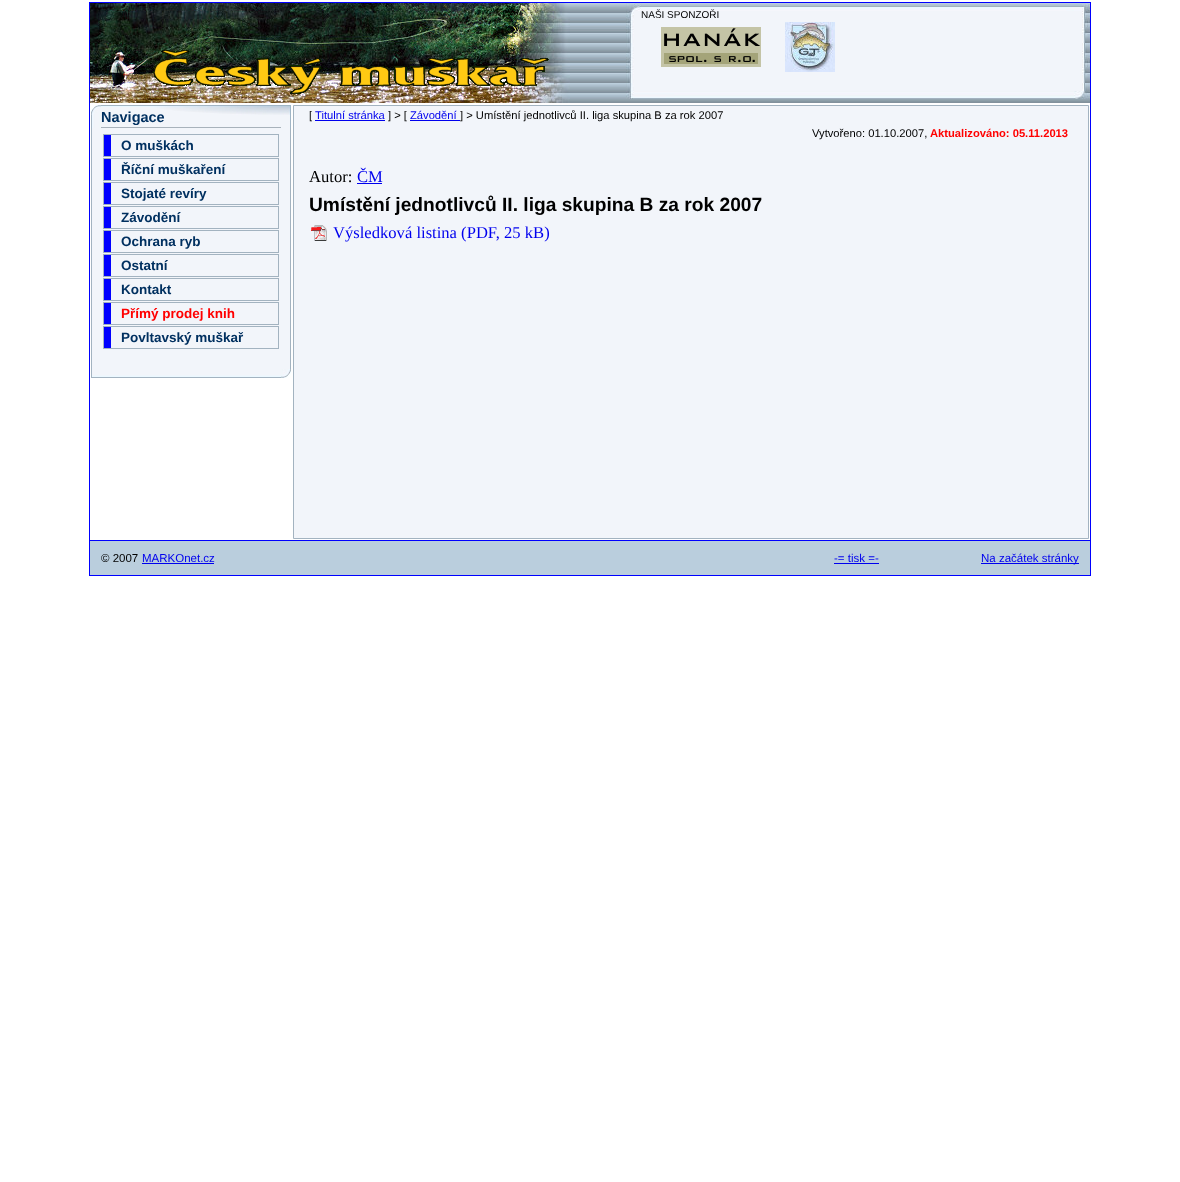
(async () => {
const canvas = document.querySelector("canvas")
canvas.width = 1180
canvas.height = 1182
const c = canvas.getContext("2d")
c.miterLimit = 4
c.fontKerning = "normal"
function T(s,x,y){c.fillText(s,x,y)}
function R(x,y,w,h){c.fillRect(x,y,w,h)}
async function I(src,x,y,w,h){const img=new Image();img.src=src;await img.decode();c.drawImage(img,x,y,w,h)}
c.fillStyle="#fff"
R(0,0,1180,1182)
c.strokeStyle="#00f"
c.strokeRect(89.5,2.5,1001,573)
await I("1.png",90,3,1000,100)
c.font="10px Liberation Sans"
c.fillStyle="#000"
T("NAŠI SPONZOŘI",641,18)
await I("2.png",661,27,100,40)
await I("3.png",785,22,50,50)
await I("4.png",153,50,396,44)
c.fillStyle="#f2f5fa"
R(92,128,198,200)
await I("5.png",92,328,199,50)
await I("6.png",101,105,190,23)
await I("7.png",91,105,10,23)
c.fillStyle="#a8b2bb"
R(101,127,180,1)
c.font="bold 14.5px Liberation Sans"
c.fillStyle="#003060"
T("Navigace",101,122)
c.fillStyle="#a3b3c0"
R(290,128,1,200)
R(91,128,1,250)
c.strokeStyle="#a3b3c0"
c.strokeRect(103.5,134.5,175,22)
c.fillStyle="#00f"
R(104,135,7,21)
c.font="bold 13.5px Liberation Sans"
c.fillStyle="#003060"
T("O muškách",121,150)
c.strokeRect(103.5,158.5,175,22)
c.fillStyle="#00f"
R(104,159,7,21)
c.fillStyle="#003060"
T("Říční muškaření",121,174)
c.strokeRect(103.5,182.5,175,22)
c.fillStyle="#00f"
R(104,183,7,21)
c.fillStyle="#003060"
T("Stojaté revíry",121,198)
c.strokeRect(103.5,206.5,175,22)
c.fillStyle="#00f"
R(104,207,7,21)
c.fillStyle="#003060"
T("Závodění",121,222)
c.strokeRect(103.5,230.5,175,22)
c.fillStyle="#00f"
R(104,231,7,21)
c.fillStyle="#003060"
T("Ochrana ryb",121,246)
c.strokeRect(103.5,254.5,175,22)
c.fillStyle="#00f"
R(104,255,7,21)
c.fillStyle="#003060"
T("Ostatní",121,270)
c.strokeRect(103.5,278.5,175,22)
c.fillStyle="#00f"
R(104,279,7,21)
c.fillStyle="#003060"
T("Kontakt",121,294)
c.strokeRect(103.5,302.5,175,22)
c.fillStyle="#00f"
R(104,303,7,21)
c.fillStyle="#f00"
T("Přímý prodej knih",121,318)
c.strokeRect(103.5,326.5,175,22)
c.fillStyle="#00f"
R(104,327,7,21)
c.fillStyle="#003060"
T("Povltavský muškař",121,342)
c.fillStyle="#f2f5fa"
c.beginPath()
c.rect(293.5,105.5,795,433)
c.fill()
c.stroke()
c.font="11.2px Liberation Sans"
c.fillStyle="#000"
T("[",309,119)
c.fillStyle="#00e"
T("Titulní stránka",315,119)
R(315,120,70,1)
c.fillStyle="#000"
T("] > [",388,119)
c.fillStyle="#00e"
T("Závodění",410,119)
R(410,120,50,1)
c.fillStyle="#000"
T("] > Umístění jednotlivců II. liga skupina B za rok 2007",460,119)
T("Vytvořeno: 01.10.2007,",812,137)
c.font="bold 11.2px Liberation Sans"
c.fillStyle="#f00"
T("Aktualizováno: 05.11.2013",930,137)
c.font="16.6px Liberation Serif"
c.fillStyle="#000"
T("Autor:",309,182)
c.fillStyle="#00e"
T("ČM",357,182)
R(357,183,25,1)
c.font="bold 19.2px Liberation Sans"
c.fillStyle="#000"
T("Umístění jednotlivců II. liga skupina B za rok 2007",309,211)
await I("8.png",311,225,16,16)
c.font="16.6px Liberation Serif"
c.fillStyle="#00e"
T("Výsledková listina (PDF, 25 kB)",333,238)
c.fillStyle="#bacedd"
R(90,541,1000,34)
c.fillStyle="#00f"
R(90,540,1000,1)
c.font="11.5px Liberation Sans"
c.fillStyle="#000"
T("© 2007",101,562)
c.fillStyle="#00e"
T("MARKOnet.cz",142,562)
R(142,563,72,1)
T("-= tisk =-",834,562)
R(834,563,45,1)
R(981,563,98,1)
T("Na začátek stránky",981,562)
})()
